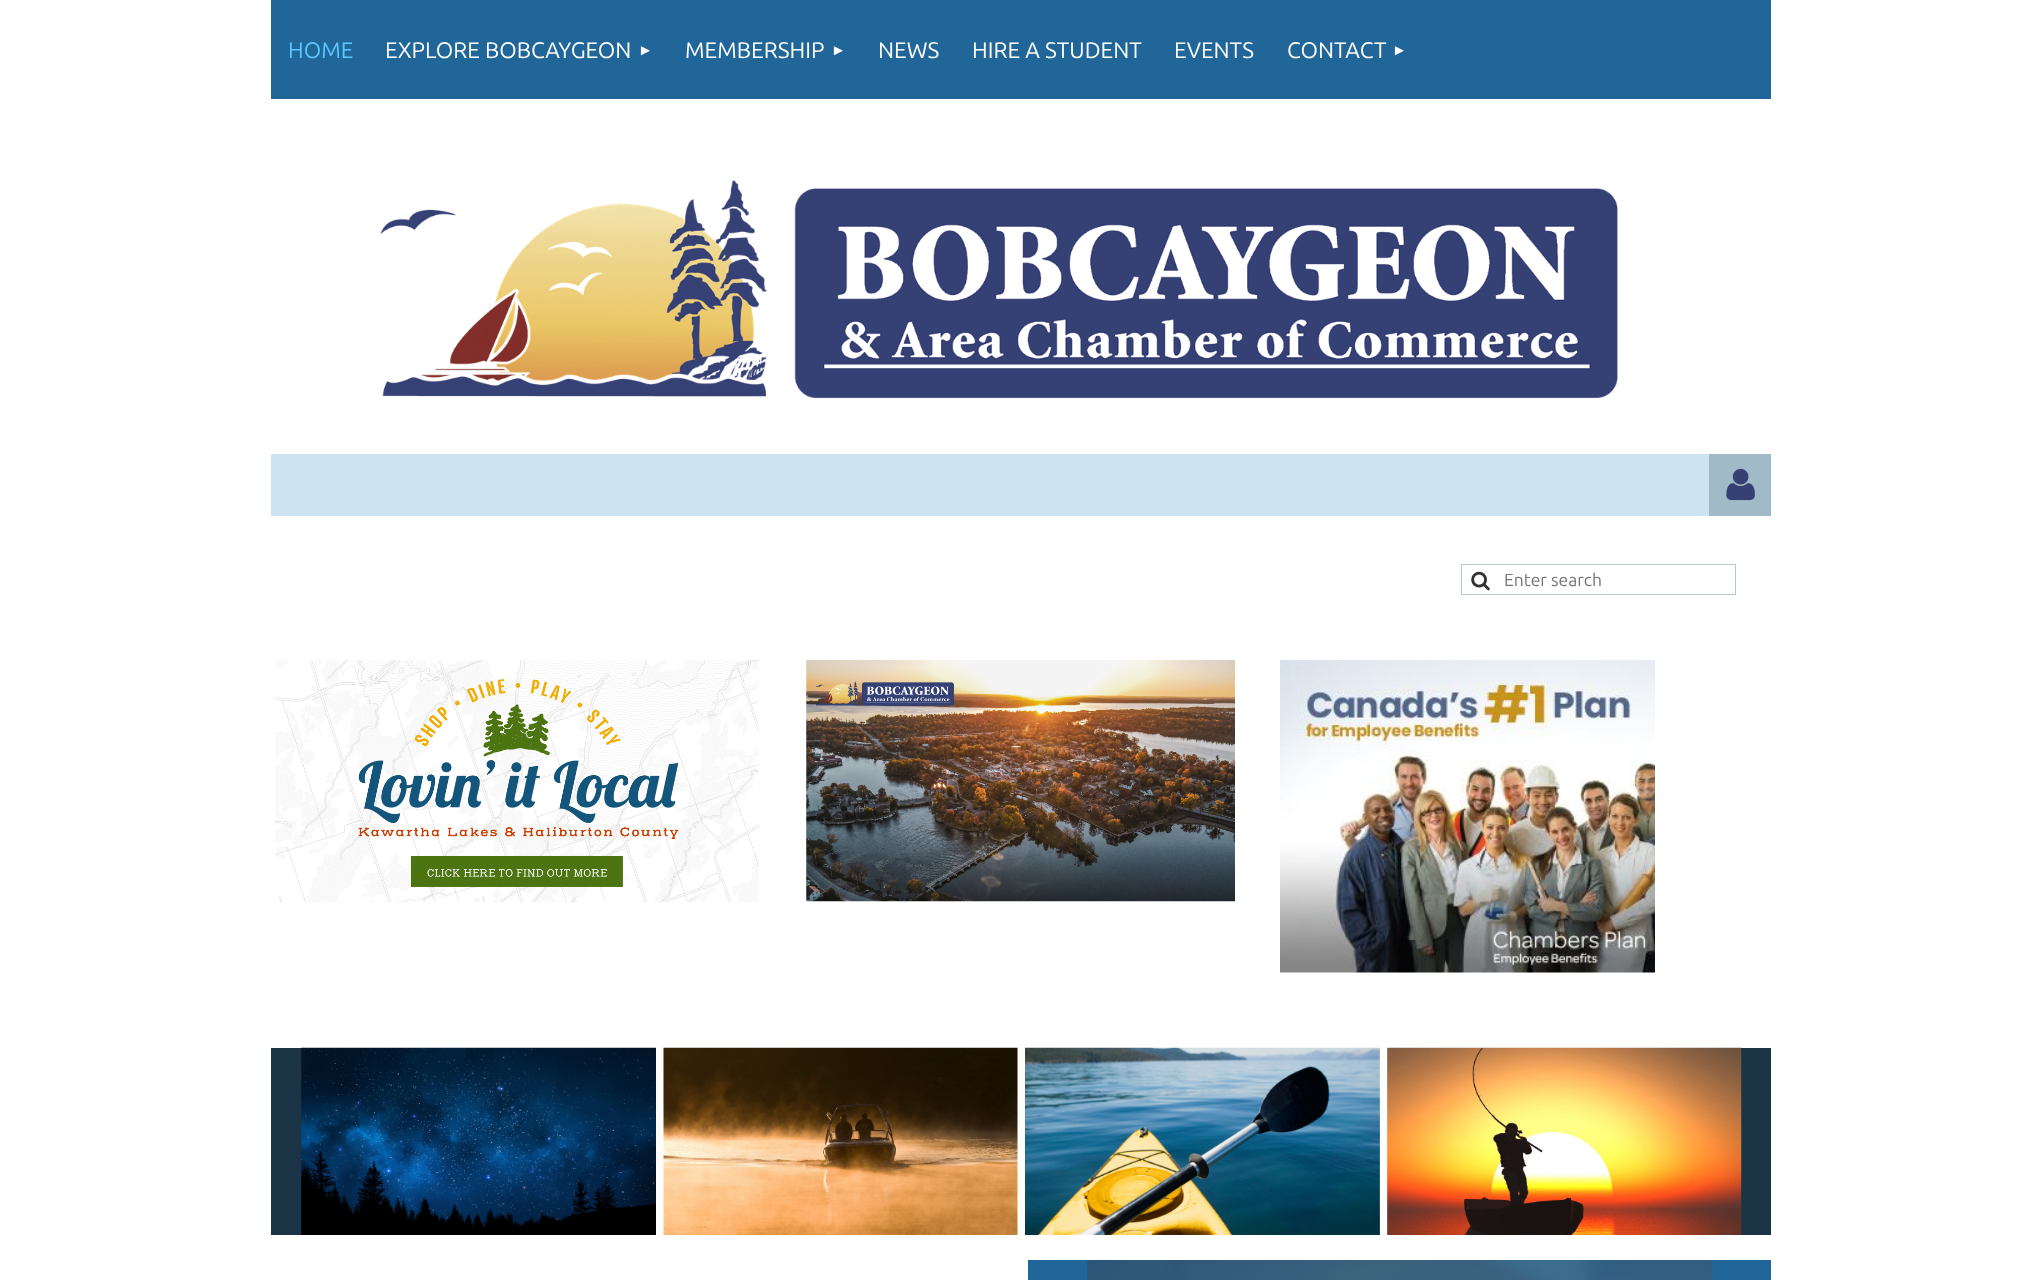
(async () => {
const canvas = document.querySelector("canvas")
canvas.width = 2042
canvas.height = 1280
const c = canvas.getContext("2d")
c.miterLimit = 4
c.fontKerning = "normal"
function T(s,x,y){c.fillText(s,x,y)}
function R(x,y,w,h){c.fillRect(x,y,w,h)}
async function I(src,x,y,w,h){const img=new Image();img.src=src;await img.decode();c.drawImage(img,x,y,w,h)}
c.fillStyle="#fff"
R(0,0,2042,1280)
c.fillStyle="#206699"
R(271,0,1500,99)
c.font="22.5px Ubuntu"
c.fillStyle="#5bc7ff"
T("HOME",288,58)
c.fillStyle="#fff"
T("EXPLORE BOBCAYGEON",385,58)
c.font="15px Liberation Sans"
T("►",638,55)
c.font="22.5px Ubuntu"
T("MEMBERSHIP",685,58)
c.font="15px Liberation Sans"
T("►",831,55)
c.font="22.5px Ubuntu"
T("NEWS",878,58)
T("HIRE A STUDENT",972,58)
T("EVENTS",1174,58)
T("CONTACT",1287,58)
c.font="15px Liberation Sans"
T("►",1392,55)
await I("1.png",380,180,1238,219)
c.fillStyle="#cee3f2"
R(271,454,1438,62)
c.fillStyle="#a0bac7"
R(1709,454,62,62)
await I("2.png",1726,468,29,33)
c.strokeStyle="#b8c6cd"
c.strokeRect(1461.5,564.5,274,30)
await I("3.png",1471,571,19,20)
c.font="17.5px Ubuntu"
c.fillStyle="#757575"
T("Enter search",1504,586)
await I("4.png",275,660,484,243)
await I("5.png",806,660,429,242)
await I("6.png",1280,660,375,313)
c.fillStyle="#1b3445"
R(271,1048,1500,187)
await I("7.png",301,1047,1441,188)
c.fillStyle="#206699"
R(1028,1260,743,20)
await I("8.png",1087,1260,626,20)
})()
